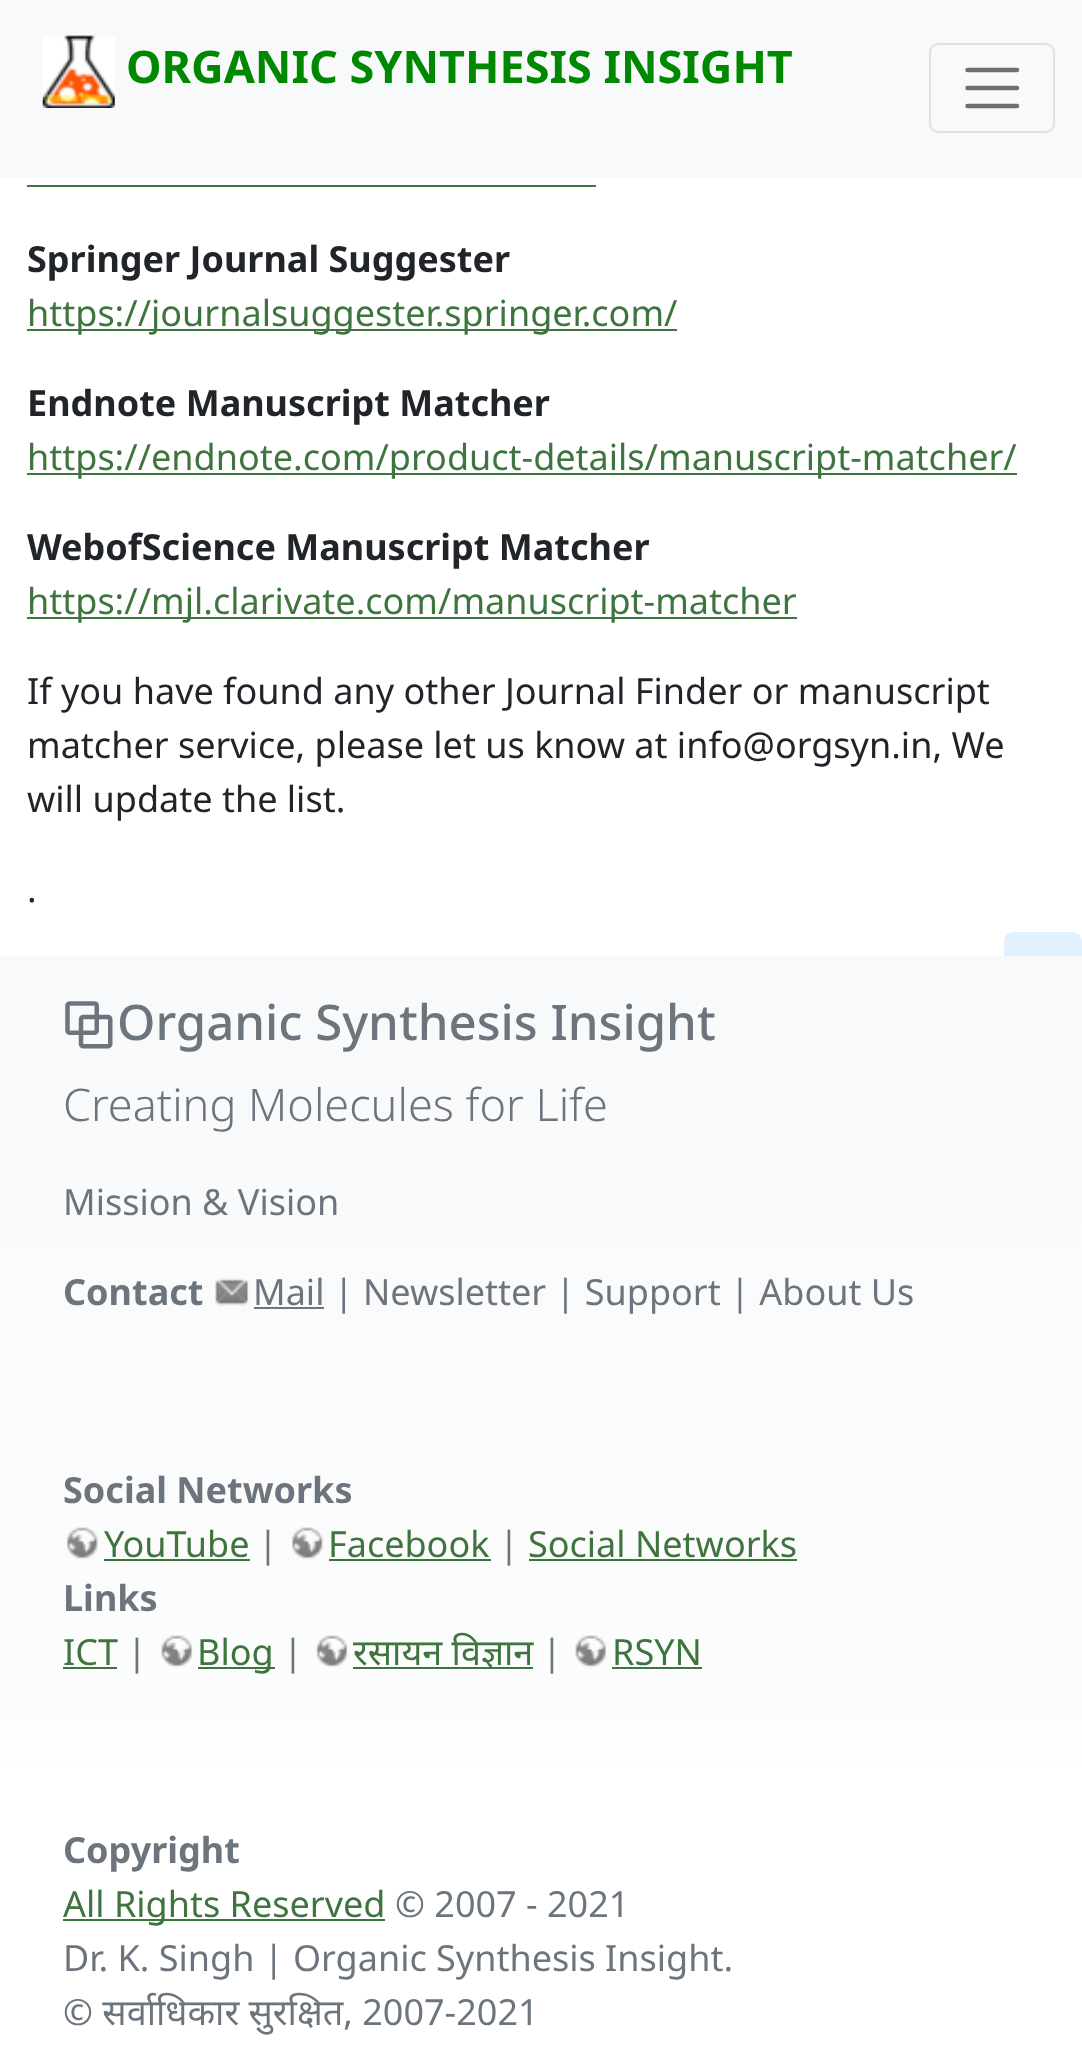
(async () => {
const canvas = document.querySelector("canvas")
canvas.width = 1082
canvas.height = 2069
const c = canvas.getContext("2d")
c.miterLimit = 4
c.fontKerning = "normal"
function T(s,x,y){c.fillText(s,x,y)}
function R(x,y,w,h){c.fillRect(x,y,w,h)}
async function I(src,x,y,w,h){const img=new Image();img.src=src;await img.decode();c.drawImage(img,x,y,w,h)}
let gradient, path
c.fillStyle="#fff"
R(0,0,1082,2069)
c.fillStyle="#f8f9fa"
R(0,0,1082,178)
await I("1.png",42,35,73,73)
c.font="bold 45px Noto Sans"
c.fillStyle="#080"
T("ORGANIC SYNTHESIS INSIGHT",126,83)
c.beginPath()
c.roundRect(930,44,124,88,8)
c.strokeStyle="#dfe0e1"
c.lineWidth=2
c.stroke()
path = new Path2D("M967.5 70h49.5m-49.5 18h49.5m-49.5 18h49.5")
c.strokeStyle="#707071"
c.lineWidth=4.5
c.lineCap="round"
c.stroke(path)
c.fillStyle="#3e743e"
R(27,185,569,2)
c.font="bold 36px Noto Sans"
c.fillStyle="#212529"
T("Springer Journal Suggester",27,272)
c.fillStyle="#3e743e"
R(27,329,650,2)
c.font="36px Noto Sans"
T("https://journalsuggester.springer.com/",27,326)
c.font="bold 36px Noto Sans"
c.fillStyle="#212529"
T("Endnote Manuscript Matcher",27,416)
c.fillStyle="#3e743e"
R(27,473,990,2)
c.font="36px Noto Sans"
T("https://endnote.com/product-details/manuscript-matcher/",27,470)
c.font="bold 36px Noto Sans"
c.fillStyle="#212529"
T("WebofScience Manuscript Matcher",27,560)
c.fillStyle="#3e743e"
R(27,617,770,2)
c.font="36px Noto Sans"
T("https://mjl.clarivate.com/manuscript-matcher",27,614)
c.fillStyle="#212529"
T("If you have found any other Journal Finder or manuscript",27,704)
T("matcher service, please let us know at info@orgsyn.in, We",27,758)
T("will update the list.",27,812)
T(".",27,902)
c.fillStyle="#e2f1ff"
c.beginPath()
c.roundRect(1005,933,76,83,8)
c.fill()
c.strokeStyle="#e2f1ff"
c.lineWidth=2
c.stroke()
gradient = c.createLinearGradient(541,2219,541,956)
gradient.addColorStop(0,"#fff")
gradient.addColorStop(1,"#f8f9fa")
c.fillStyle = gradient
R(0,956,1082,812)
await I("2.png",65,1001,48,48)
c.font="500 49.1px Noto Sans"
c.fillStyle="#6c757d"
T("Organic Synthesis Insight",117,1040)
c.font="300 45px Noto Sans"
T("Creating Molecules for Life",63,1121)
c.font="36px Noto Sans"
T("Mission & Vision",63,1215)
c.font="bold 36px Noto Sans"
T("Contact",63,1305)
await I("3.png",215,1278,34,28)
R(254,1307,70,2)
c.font="36px Noto Sans"
T("Mail | Newsletter | Support | About Us",253,1305)
c.font="bold 36px Noto Sans"
T("Social Networks",63,1503)
await I("4.png",67,1527,32,33)
c.font="36px Noto Sans"
c.fillStyle="#3e743e"
T("YouTube",104,1557)
R(104,1559,146,2)
c.fillStyle="#6c757d"
T("|",258,1557)
await I("5.png",292,1527,32,33)
c.fillStyle="#3e743e"
T("Facebook",328,1557)
R(329,1559,162,2)
c.fillStyle="#6c757d"
T("|",499,1557)
c.fillStyle="#3e743e"
T("Social Networks",528,1557)
R(529,1559,268,2)
c.font="bold 36px Noto Sans"
c.fillStyle="#6c757d"
T("Links",63,1611)
c.font="36px Noto Sans"
c.fillStyle="#3e743e"
T("ICT",63,1665)
R(63,1667,54,2)
c.fillStyle="#6c757d"
T("|",127,1665)
await I("6.png",161,1635,32,33)
c.fillStyle="#3e743e"
R(198,1667,77,2)
T("Blog",197,1665)
c.fillStyle="#6c757d"
T("|",283,1665)
await I("7.png",316,1635,32,33)
c.fillStyle="#3e743e"
R(353,1667,180,2)
T("रसायन विज्ञान",353,1665)
c.fillStyle="#6c757d"
T("|",542,1665)
await I("6.png",575,1635,32,33)
c.fillStyle="#3e743e"
T("RSYN",612,1665)
R(612,1667,90,2)
c.font="bold 36px Noto Sans"
c.fillStyle="#6c757d"
T("Copyright",63,1863)
c.fillStyle="#3e743e"
R(63,1919,322,2)
c.font="36px Noto Sans"
T("All Rights Reserved",63,1917)
c.fillStyle="#6c757d"
T("© 2007 - 2021",395,1917)
T("Dr. K. Singh | Organic Synthesis Insight.",63,1971)
T("© सर्वाधिकार सुरक्षित, 2007-2021",63,2025)
})()
